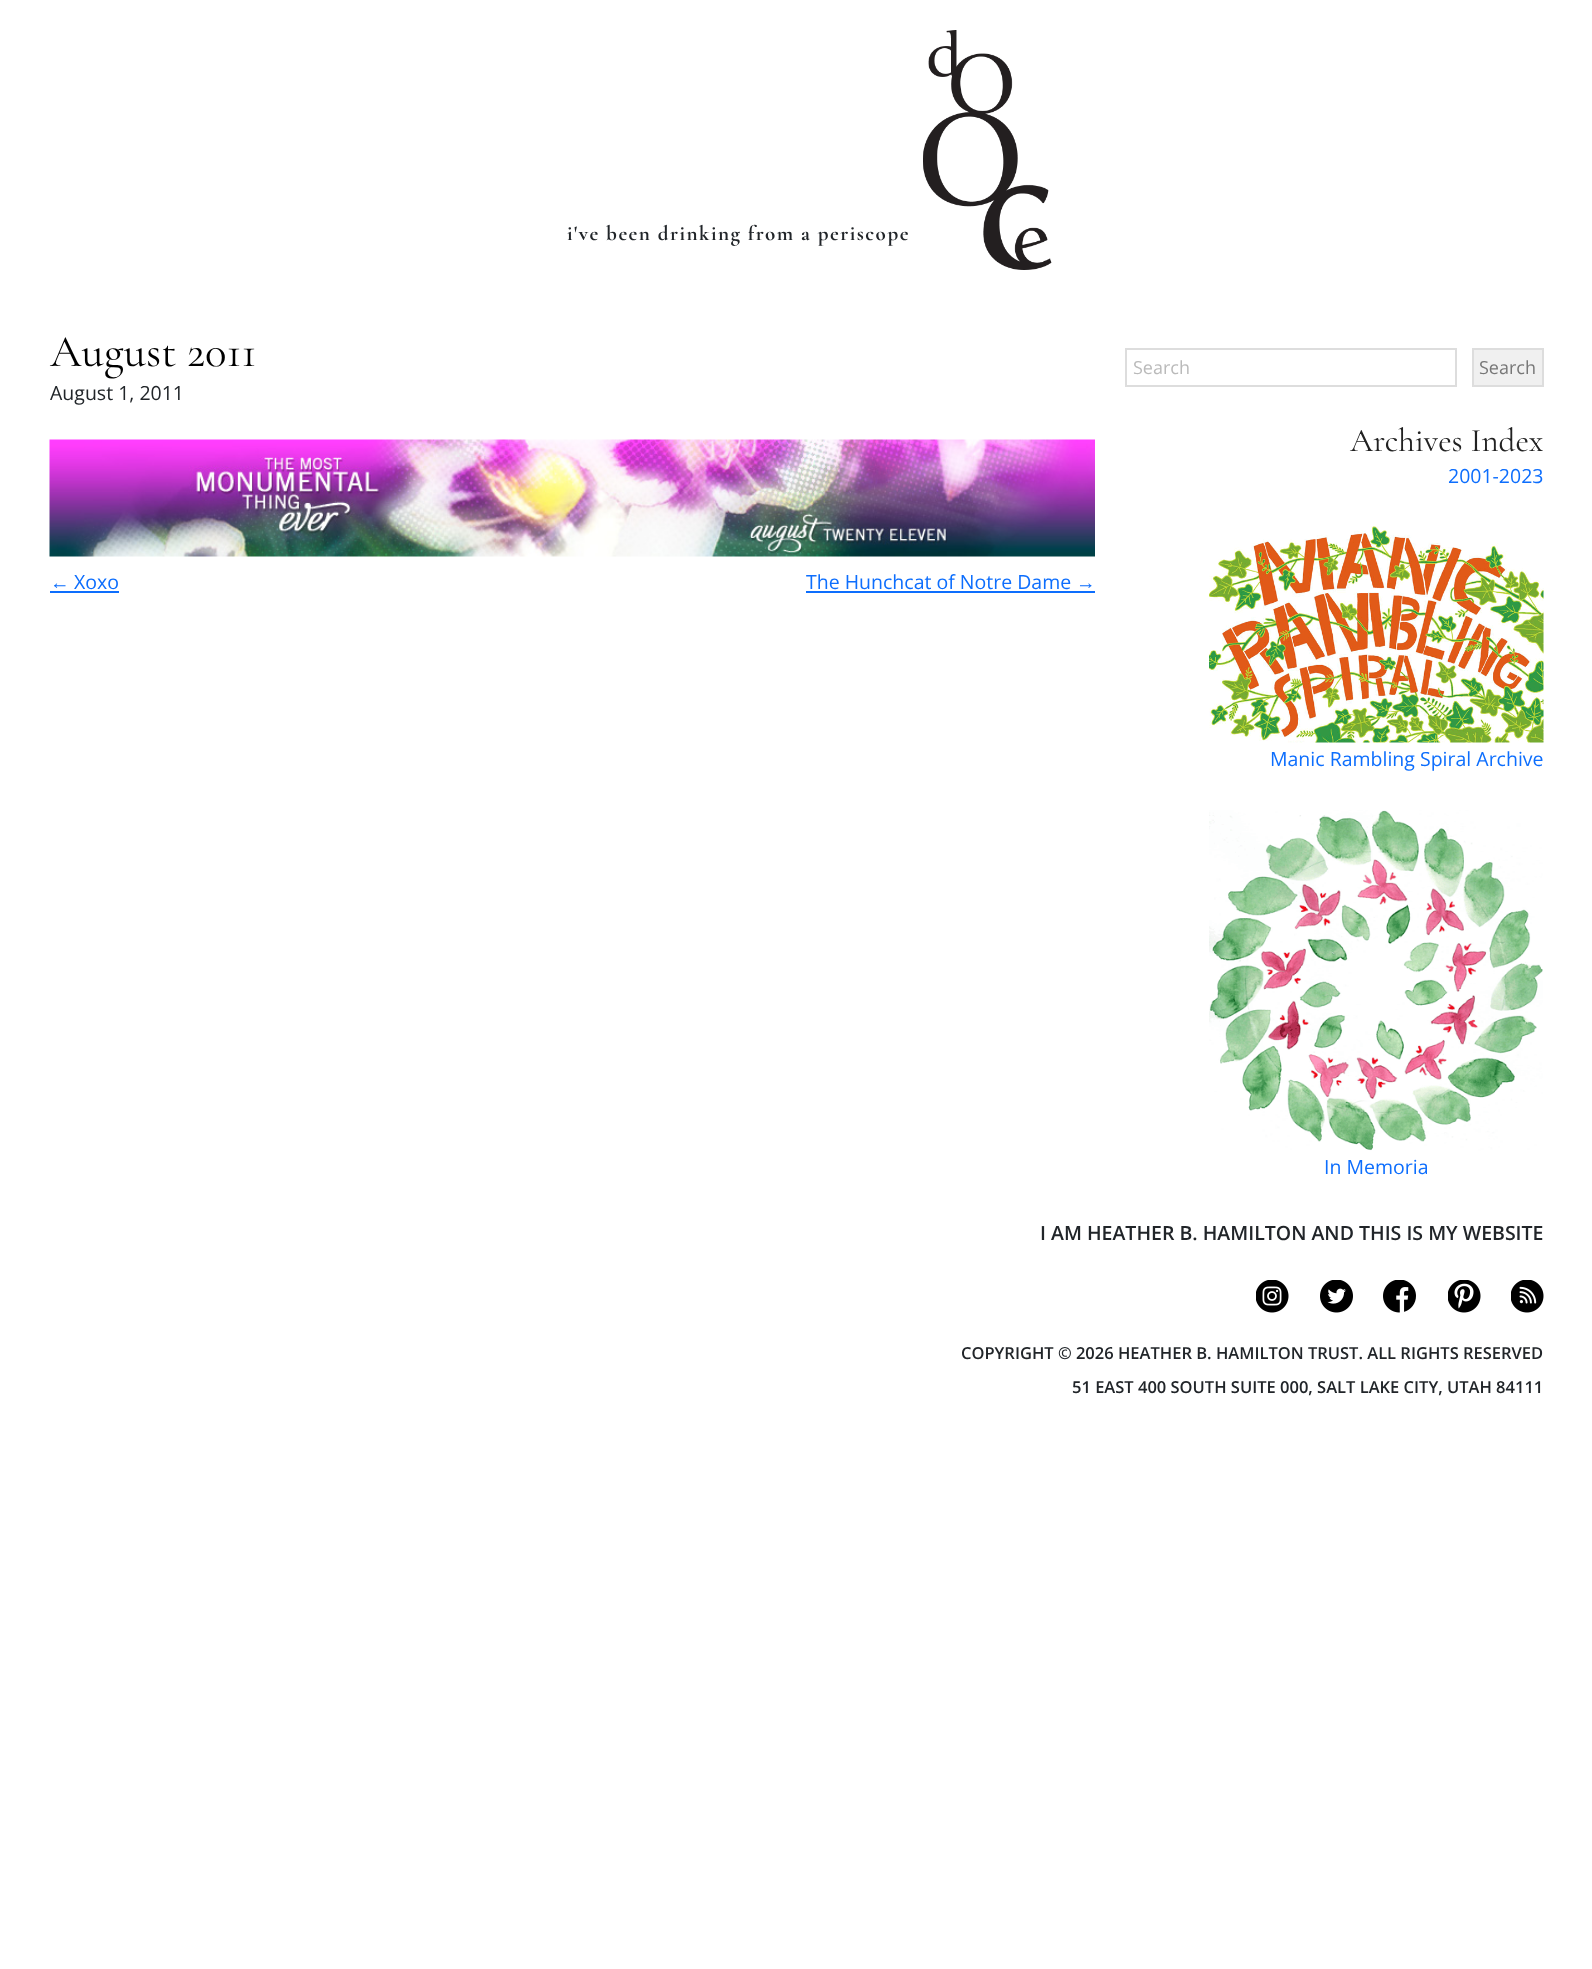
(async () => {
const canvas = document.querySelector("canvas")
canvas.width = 1592
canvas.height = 1969
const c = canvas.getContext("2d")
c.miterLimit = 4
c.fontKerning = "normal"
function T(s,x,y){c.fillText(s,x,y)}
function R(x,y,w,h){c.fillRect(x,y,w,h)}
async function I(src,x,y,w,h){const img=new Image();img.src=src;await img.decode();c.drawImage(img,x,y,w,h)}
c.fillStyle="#fff"
R(0,0,1592,1969)
c.letterSpacing="1.5px"
c.font="bold 21px Cormorant Garamond"
c.fillStyle="#212529"
T("i've been drinking from a periscope",567,240)
await I("1.png",923,30,129,240)
c.letterSpacing="0px"
c.font="45px Cormorant Garamond"
c.fillStyle="#000"
T("August 2011",50,366)
c.font="19.5px Open Sans"
c.fillStyle="#212529"
T("August 1, 2011",50,400)
await I("2.png",49,439,1046,118)
c.font="19.5px Liberation Sans"
c.fillStyle="#0d6efd"
T("←",50,589)
R(50,591,69,2)
c.font="19.5px Open Sans"
T("Xoxo",74,589)
T("The Hunchcat of Notre Dame",806,589)
c.font="19.5px Liberation Sans"
T("→",1076,589)
R(806,591,289,2)
c.strokeStyle="#ddd"
c.lineWidth=2
c.strokeRect(1126,349,330,37)
c.font="18px Open Sans"
c.fillStyle="#bababa"
T("Search",1133,374)
c.fillStyle="#f0f0f0"
c.beginPath()
c.rect(1473,349,70,37)
c.fill()
c.stroke()
c.fillStyle="#777"
T("Search",1479,374)
c.font="33px Cormorant Garamond"
c.fillStyle="#222"
T("Archives Index",1350,451)
c.font="19.5px Open Sans"
c.fillStyle="#0d6efd"
T("2001-2023",1448,483)
await I("3.png",1209,526,335,217)
T("Manic Rambling Spiral Archive",1270,766)
await I("4.png",1209,810,334,341)
T("In Memoria",1324,1174)
c.font="600 19.5px Open Sans"
c.fillStyle="#212529"
T("I AM HEATHER B. HAMILTON AND THIS IS MY WEBSITE",1040,1240)
await I("5.png",1256,1280,33,33)
await I("6.png",1320,1280,33,33)
await I("7.png",1383,1280,33,33)
await I("8.png",1448,1280,33,33)
await I("9.png",1511,1280,33,33)
c.font="600 16.5px Open Sans"
T("COPYRIGHT © 2026 HEATHER B. HAMILTON TRUST. ALL RIGHTS RESERVED",961,1359)
T("51 EAST 400 SOUTH SUITE 000, SALT LAKE CITY, UTAH 84111",1072,1393)
})()
